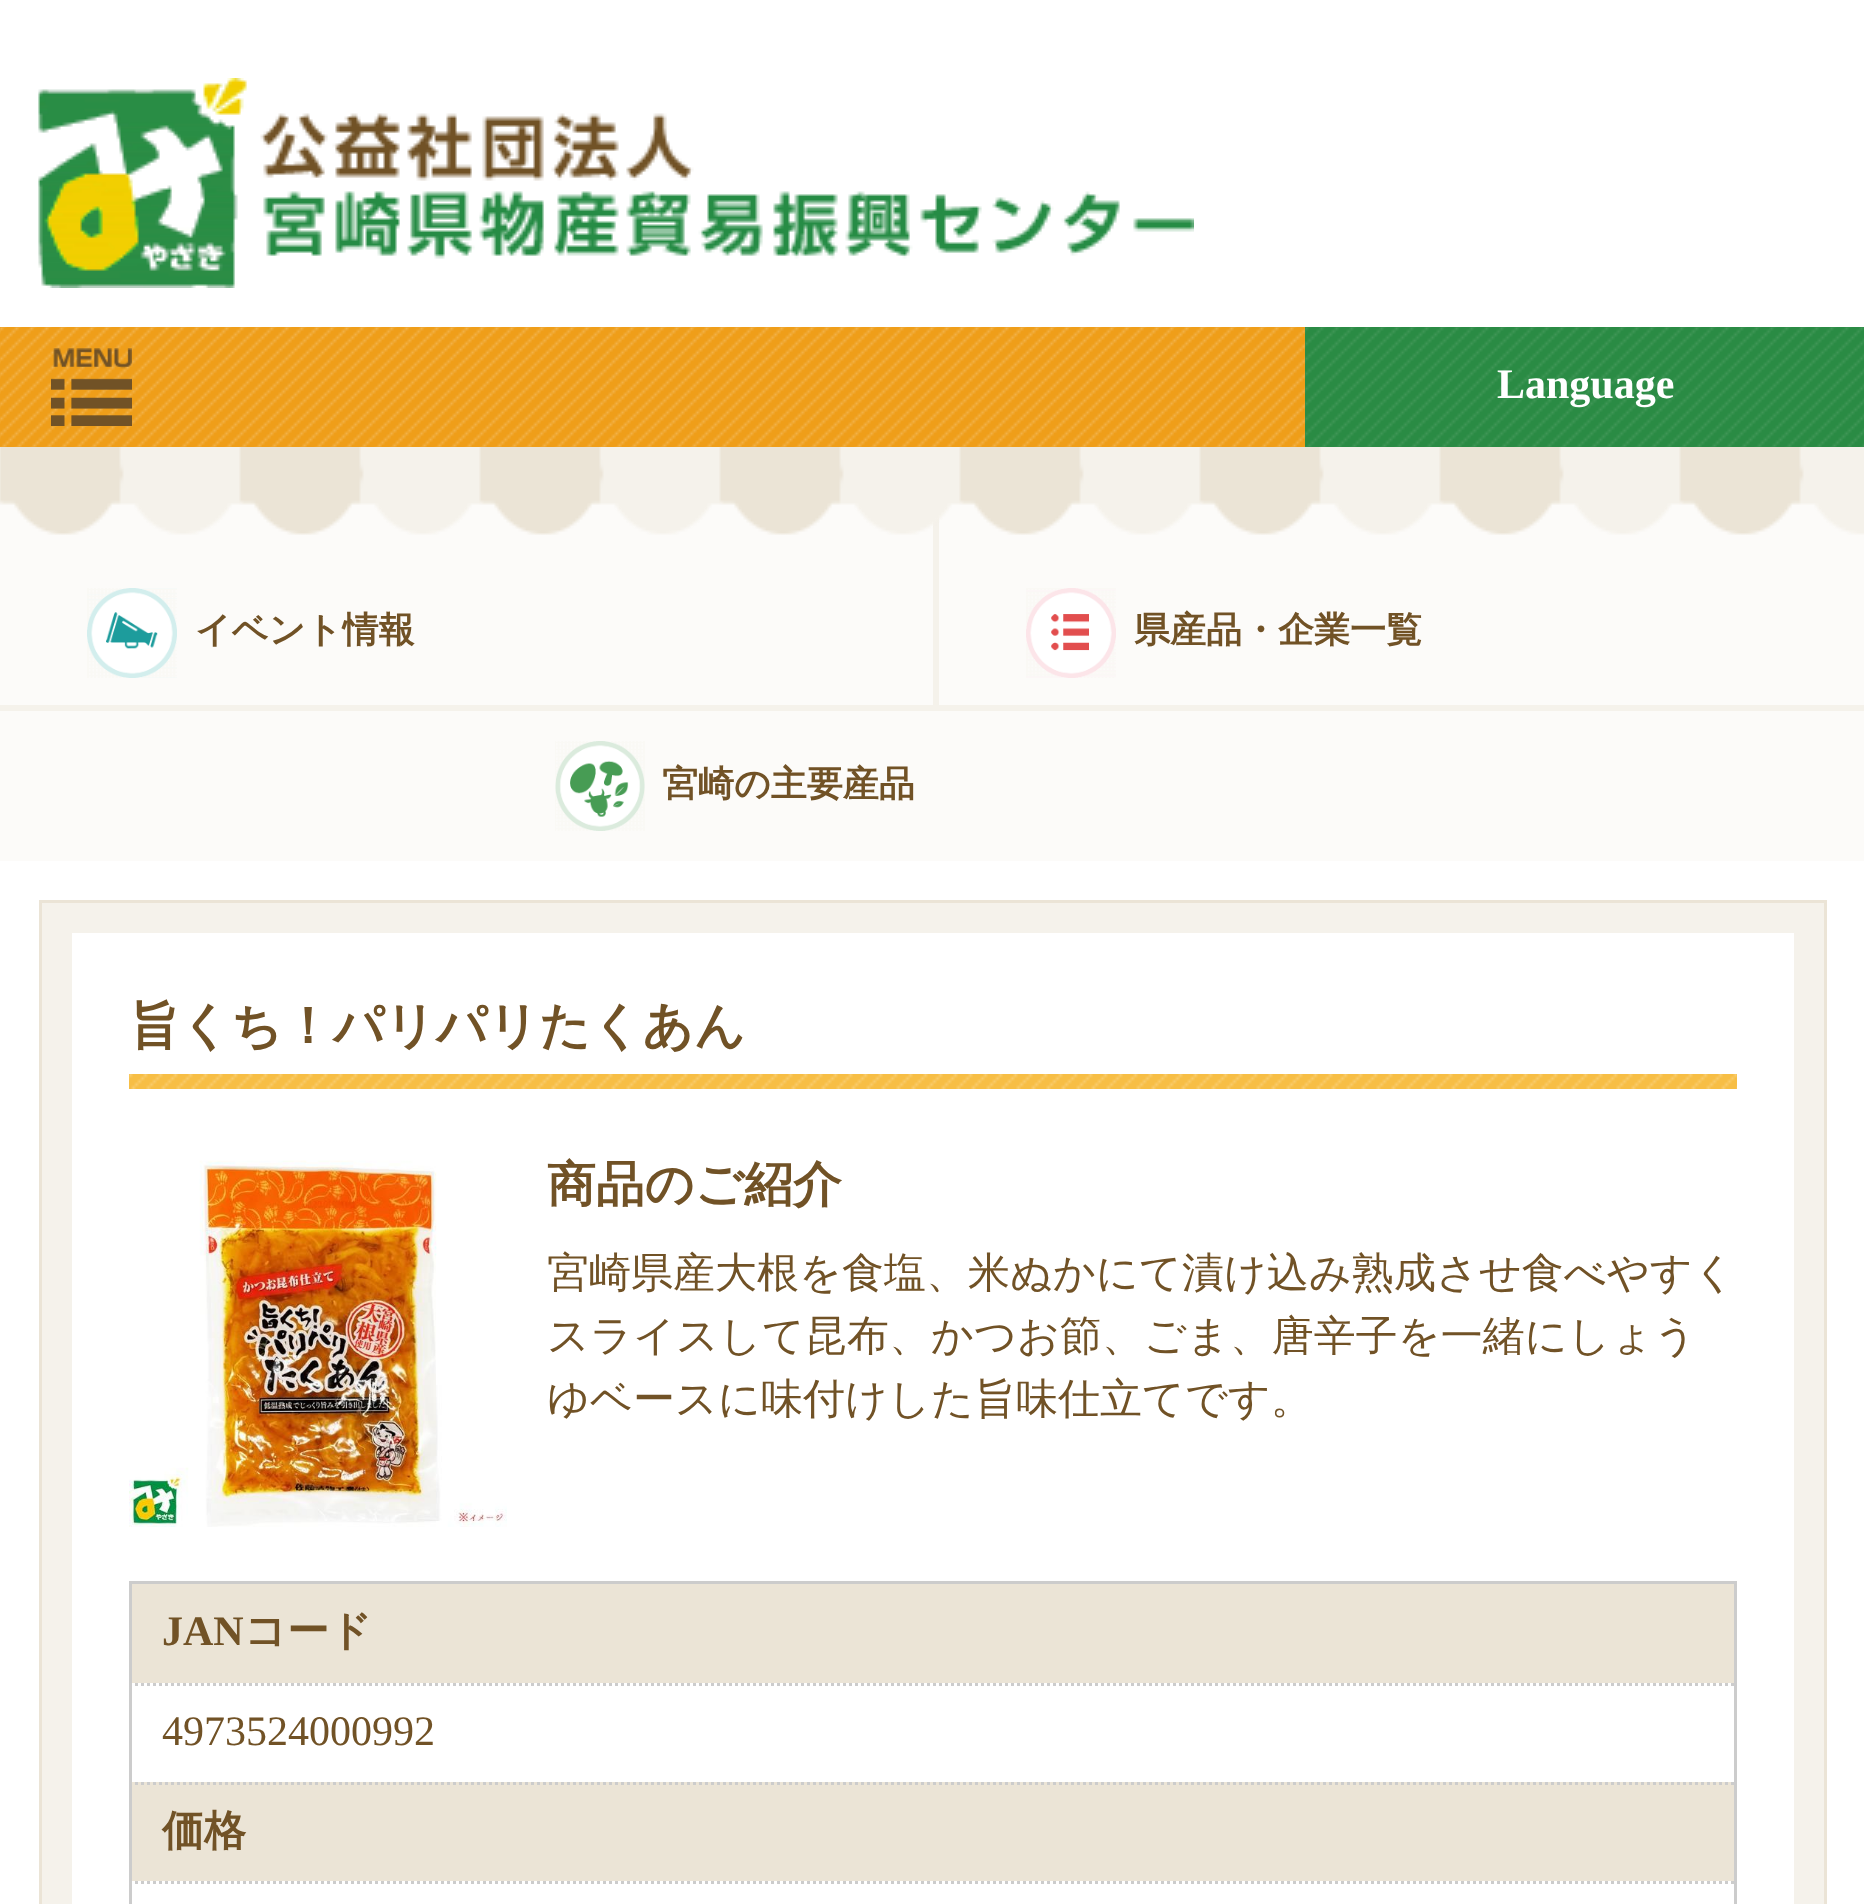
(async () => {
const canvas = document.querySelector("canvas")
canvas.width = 1864
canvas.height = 1904
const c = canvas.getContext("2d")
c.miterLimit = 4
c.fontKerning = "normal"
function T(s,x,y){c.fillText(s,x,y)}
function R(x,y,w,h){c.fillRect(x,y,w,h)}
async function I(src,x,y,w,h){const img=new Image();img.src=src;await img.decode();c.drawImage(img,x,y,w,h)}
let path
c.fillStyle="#fff"
R(0,0,1864,1904)
await I("1.png",38,78,1156,210)
await I("2.png",0,327,1305,120)
await I("3.png",51,348,81,78)
await I("4.png",1305,327,559,120)
c.font="bold 42px Liberation Serif"
T("Language",1497,398)
c.fillStyle="#fcfbf9"
R(0,501,1864,360)
c.fillStyle="#f5f2eb"
R(0,705,1864,6)
R(933,515,6,196)
await I("5.png",0,447,1864,88)
await I("6.png",87,588,90,90)
c.font="bold 36px WenQuanYi Zen Hei"
c.fillStyle="#715226"
T("イベント情報",195,642)
await I("7.png",1026,588,90,90)
T("県産品・企業一覧",1134,642)
await I("8.png",555,741,90,90)
T("宮崎の主要産品",662,796)
c.fillStyle="#f5f2eb"
c.beginPath()
c.rect(40.5,901.5,1785,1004)
c.fill()
c.strokeStyle="#ebe4d6"
c.lineWidth=3
c.stroke()
c.fillStyle="#fff"
R(72,933,1722,971)
await I("9.png",129,1074,1608,15)
c.font="bold 50.4px WenQuanYi Zen Hei"
c.fillStyle="#715226"
T("旨くち！パリパリたくあん",129,1043)
await I("10.png",129,1160,378,367)
c.font="bold 48.75px WenQuanYi Zen Hei"
T("商品のご紹介",547,1201)
c.font="500 42px WenQuanYi Zen Hei"
T("宮崎県産大根を食塩、米ぬかにて漬け込み熟成させ食べやすく",547,1287)
T("スライスして昆布、かつお節、ごま、唐辛子を一緒にしょう",547,1350)
T("ゆベースに味付けした旨味仕立てです。",547,1413)
c.fillStyle="#ebe4d6"
R(132,1584,1602,99)
c.fillStyle="#ccc"
R(129,1581,1608,3)
R(1734,1581,3,323)
R(129,1581,3,102)
c.font="bold 42px Liberation Serif"
c.fillStyle="#715226"
T("JAN",162,1645)
c.font="bold 42px WenQuanYi Zen Hei"
T("コード",244,1645)
path = new Path2D("M129 1684.5h1608")
c.strokeStyle="#ccc"
c.setLineDash([3,3])
c.stroke(path)
c.fillStyle="#ccc"
R(129,1683,3,99)
c.font="42px Liberation Serif"
c.fillStyle="#715226"
T("4973524000992",162,1745)
c.fillStyle="#ebe4d6"
R(132,1782,1602,99)
path = new Path2D("M129 1783.5h1608")
c.stroke(path)
c.fillStyle="#ccc"
R(129,1782,3,99)
c.font="bold 42px WenQuanYi Zen Hei"
c.fillStyle="#715226"
T("価格",162,1845)
path = new Path2D("M129 1882.5h1608")
c.stroke(path)
c.fillStyle="#ccc"
R(129,1881,3,23)
})()
